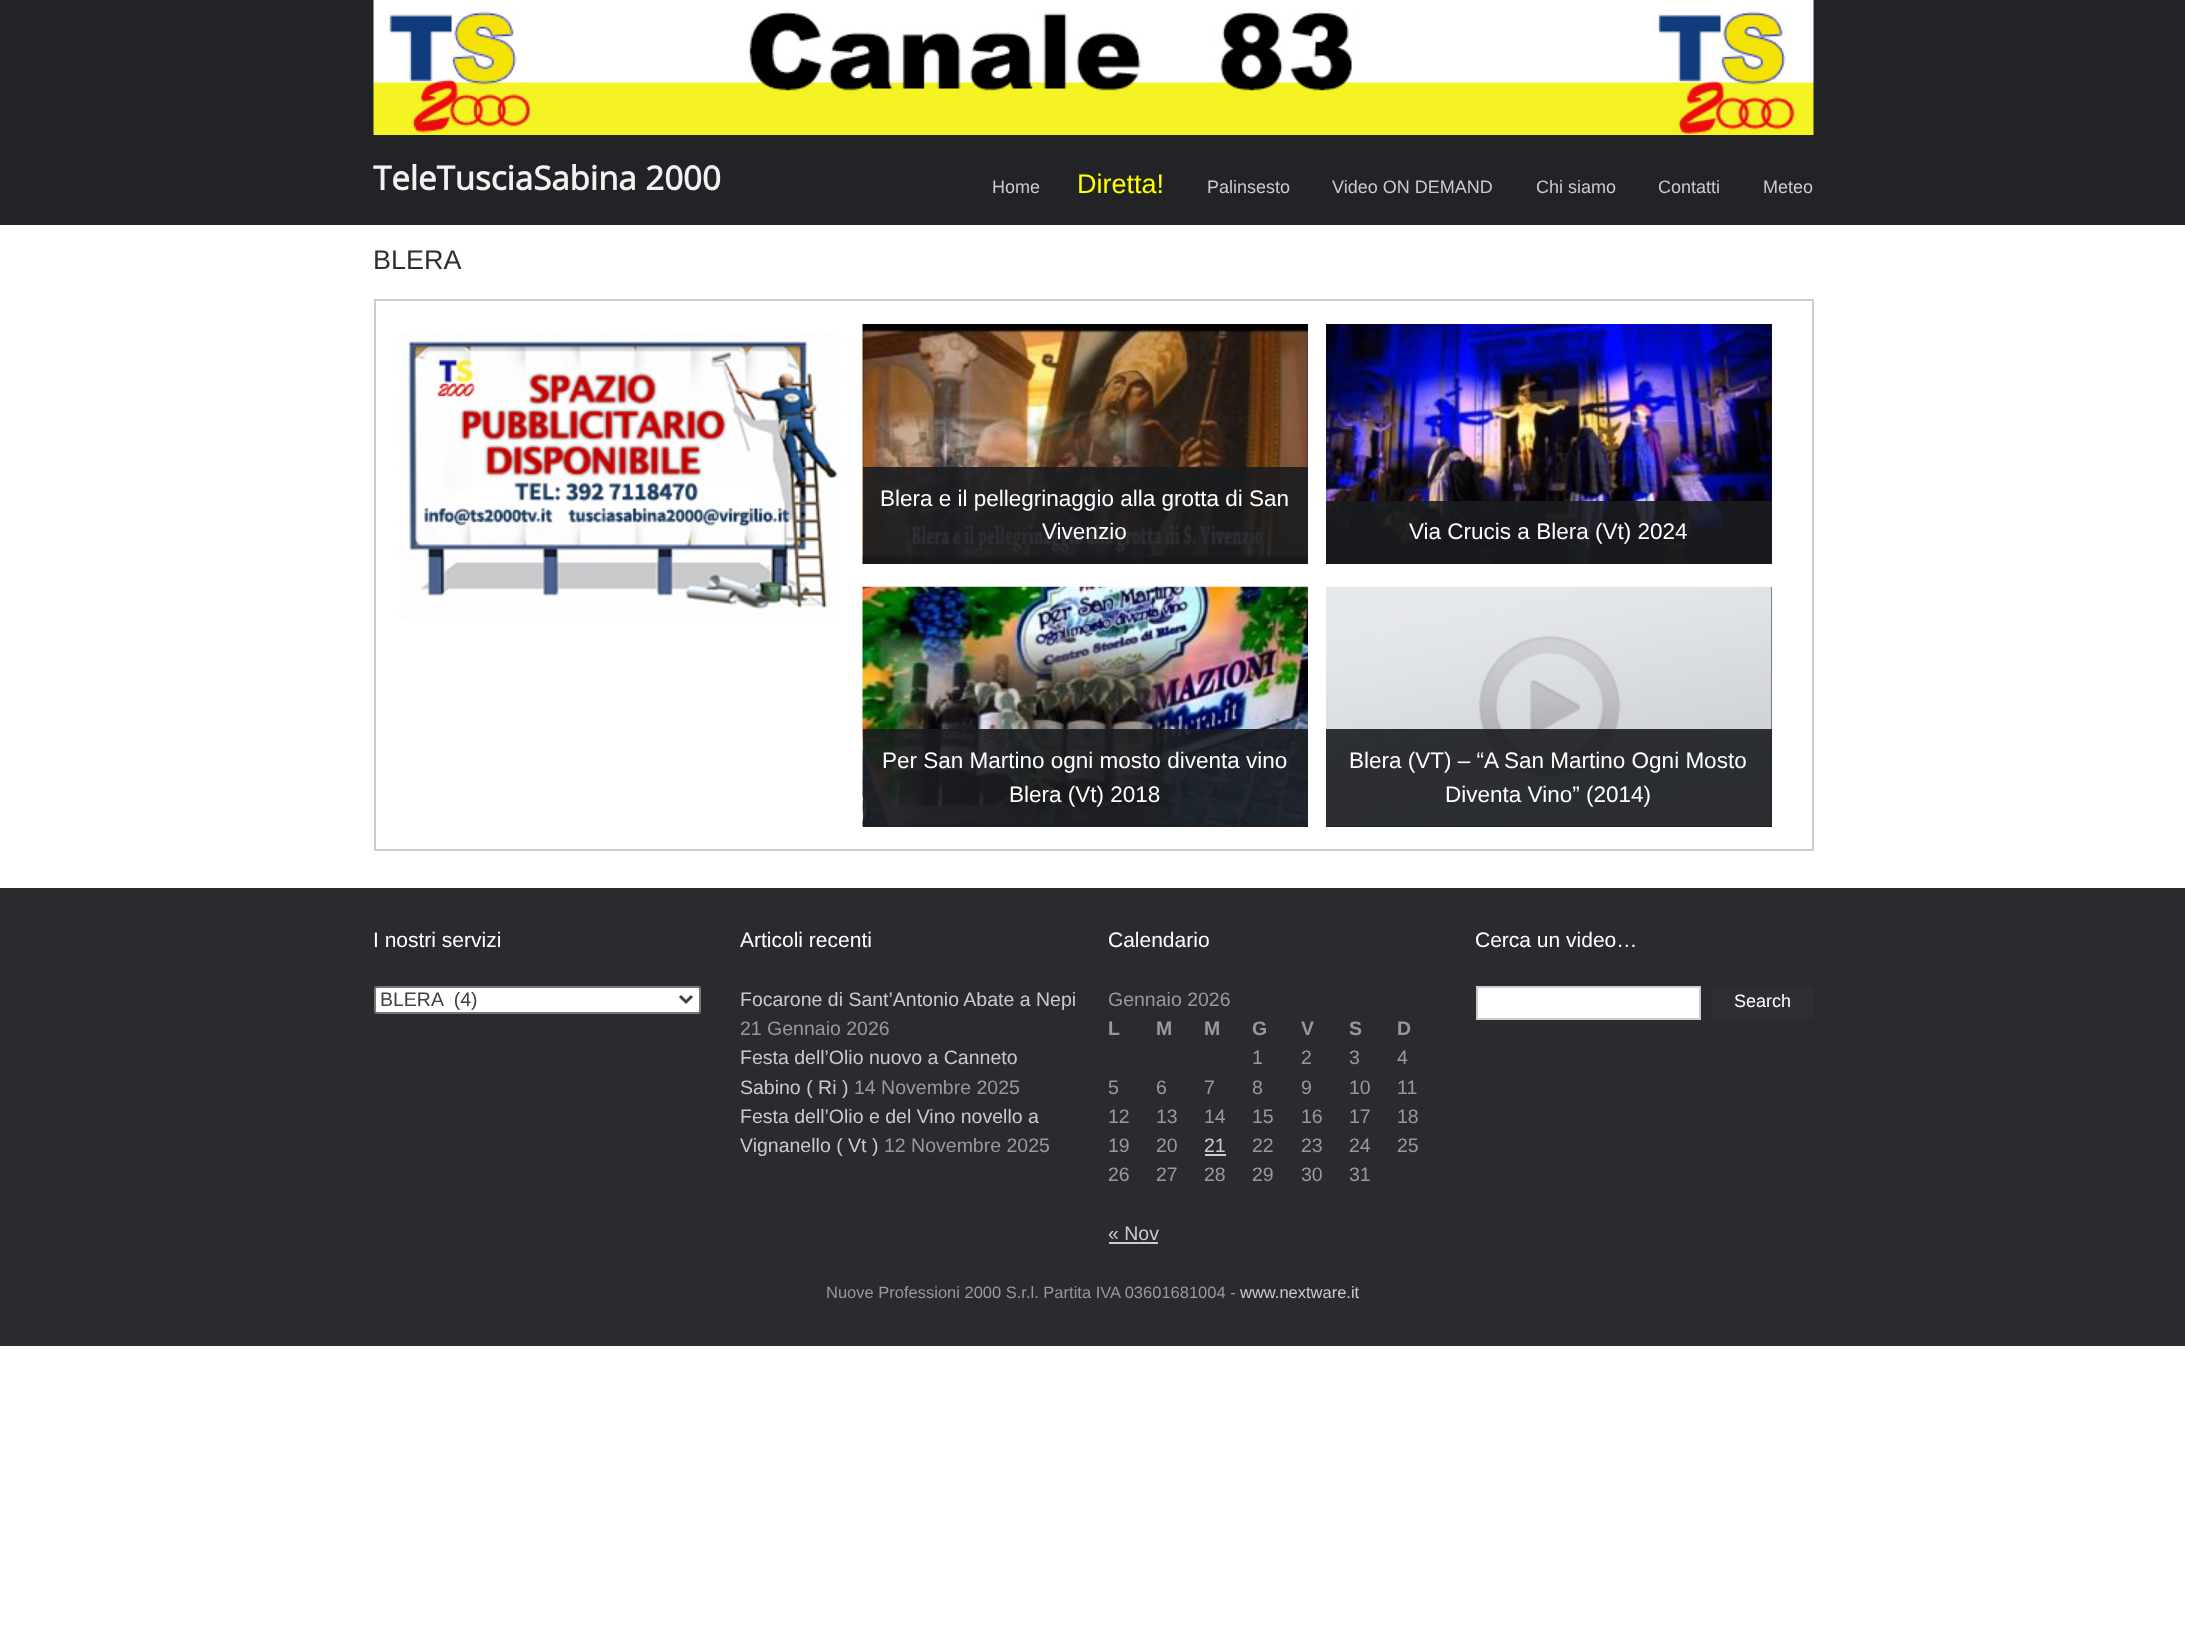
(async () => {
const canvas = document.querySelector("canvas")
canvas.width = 2185
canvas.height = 1643
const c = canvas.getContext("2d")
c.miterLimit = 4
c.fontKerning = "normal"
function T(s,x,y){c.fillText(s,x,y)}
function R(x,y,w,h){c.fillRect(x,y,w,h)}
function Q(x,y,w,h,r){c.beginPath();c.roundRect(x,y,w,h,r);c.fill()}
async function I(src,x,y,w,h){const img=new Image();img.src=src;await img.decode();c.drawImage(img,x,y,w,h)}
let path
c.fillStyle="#fff"
R(0,0,2185,1643)
c.fillStyle="#212326"
R(0,0,2185,225)
await I("1.png",373,0,1441,135)
c.font="bold 33px Open Sans"
c.fillStyle="#f2f2f2"
T("TeleTusciaSabina 2000",373,190)
c.font="18px Liberation Sans"
c.fillStyle="#cbcbcb"
T("Home",992,193)
c.font="27px Liberation Sans"
c.fillStyle="#ff0"
T("Diretta!",1077,193)
c.font="18px Liberation Sans"
c.fillStyle="#cbcbcb"
T("Palinsesto",1207,193)
T("Video ON DEMAND",1332,193)
T("Chi siamo",1536,193)
T("Contatti",1658,193)
T("Meteo",1763,193)
c.font="27px Liberation Sans"
c.fillStyle="#2d3033"
T("BLERA",373,269)
c.strokeStyle="#ccc"
c.lineWidth=2
c.strokeRect(375,300,1438,550)
await I("2.png",399,333,442,285)
await I("3.png",862,324,446,240)
c.fillStyle="#1a1c1fe6"
R(863,467,445,97)
c.font="22.5px Liberation Sans"
c.fillStyle="#fff"
T("Blera e il pellegrinaggio alla grotta di San",880,506)
T("Vivenzio",1042,539)
c.fillStyle="#1a1c1f"
R(1771,324,1,240)
await I("4.png",1326,324,446,240)
c.fillStyle="#1a1c1fe6"
R(1326,501,446,63)
c.fillStyle="#fff"
T("Via Crucis a Blera (Vt) 2024",1409,539)
c.fillStyle="#1a1c1f"
R(863,826,445,1)
await I("5.png",862,586,446,241)
c.fillStyle="#1a1c1fe6"
R(863,729,445,98)
c.fillStyle="#fff"
T("Per San Martino ogni mosto diventa vino",882,768)
T("Blera (Vt) 2018",1009,802)
c.fillStyle="#1a1c1f"
R(1326,587,446,240)
await I("6.png",1326,586,446,241)
c.fillStyle="#1a1c1fe6"
R(1326,729,446,98)
c.fillStyle="#fff"
T("Blera (VT) – “A San Martino Ogni Mosto",1349,768)
T("Diventa Vino” (2014)",1445,802)
c.fillStyle="#2a2b2f"
R(0,888,2185,458)
c.font="21px Liberation Sans"
c.fillStyle="#fff"
T("I nostri servizi",373,947)
c.beginPath()
c.roundRect(375,987,325,26,2)
c.fill()
c.strokeStyle="#767676"
c.stroke()
path = new Path2D("M680 996l6 6l6-6")
c.strokeStyle="#404040"
c.lineWidth=3
c.stroke(path)
c.font="19.5px Liberation Sans"
c.fillStyle="#404040"
T("BLERA  (4)",380,1006)
c.font="21px Liberation Sans"
c.fillStyle="#fff"
T("Articoli recenti",740,947)
c.font="19.5px Liberation Sans"
c.fillStyle="#cbcbcb"
T("Focarone di Sant’Antonio Abate a Nepi",740,1006)
c.fillStyle="#999"
T("21 Gennaio 2026",740,1035)
c.fillStyle="#cbcbcb"
T("Festa dell’Olio nuovo a Canneto",740,1064)
T("Sabino ( Ri )",740,1094)
c.fillStyle="#999"
T("14 Novembre 2025",854,1094)
c.fillStyle="#cbcbcb"
T("Festa dell’Olio e del Vino novello a",740,1123)
T("Vignanello ( Vt )",740,1152)
c.fillStyle="#999"
T("12 Novembre 2025",884,1152)
c.font="21px Liberation Sans"
c.fillStyle="#fff"
T("Calendario",1108,947)
c.font="19.5px Liberation Sans"
c.fillStyle="#999"
T("Gennaio 2026",1108,1006)
c.font="bold 19.5px Liberation Sans"
T("L",1108,1035)
T("M",1156,1035)
T("M",1204,1035)
T("G",1252,1035)
T("V",1301,1035)
T("S",1349,1035)
T("D",1397,1035)
c.font="19.5px Liberation Sans"
T("1",1252,1064)
T("2",1301,1064)
T("3",1349,1064)
T("4",1397,1064)
T("5",1108,1094)
T("6",1156,1094)
T("7",1204,1094)
T("8",1252,1094)
T("9",1301,1094)
T("10",1349,1094)
T("11",1397,1094)
T("12",1108,1123)
T("13",1156,1123)
T("14",1204,1123)
T("15",1252,1123)
T("16",1301,1123)
T("17",1349,1123)
T("18",1397,1123)
T("19",1108,1152)
T("20",1156,1152)
c.fillStyle="#cbcbcb"
T("21",1204,1152)
c.fillStyle="#ccc"
R(1205,1154,21,2)
c.fillStyle="#999"
T("22",1252,1152)
T("23",1301,1152)
T("24",1349,1152)
T("25",1397,1152)
T("26",1108,1181)
T("27",1156,1181)
T("28",1204,1181)
T("29",1252,1181)
T("30",1301,1181)
T("31",1349,1181)
c.fillStyle="#cbcbcb"
T("« Nov",1108,1240)
c.fillStyle="#ccc"
R(1109,1242,49,2)
c.font="21px Liberation Sans"
c.fillStyle="#fff"
T("Cerca un video…",1475,947)
c.beginPath()
c.rect(1477,987,223,32)
c.fill()
c.strokeStyle="#ccc"
c.lineWidth=2
c.stroke()
c.fillStyle="#2d2f33"
Q(1712,986,102,33,5)
c.font="18px Liberation Sans"
c.fillStyle="#fff"
T("Search",1734,1007)
c.font="16.5px Liberation Sans"
c.fillStyle="#999"
T("Nuove Professioni 2000 S.r.l. Partita IVA 03601681004 -",826,1298)
c.fillStyle="#cbcbcb"
T("www.nextware.it",1240,1298)
})()
